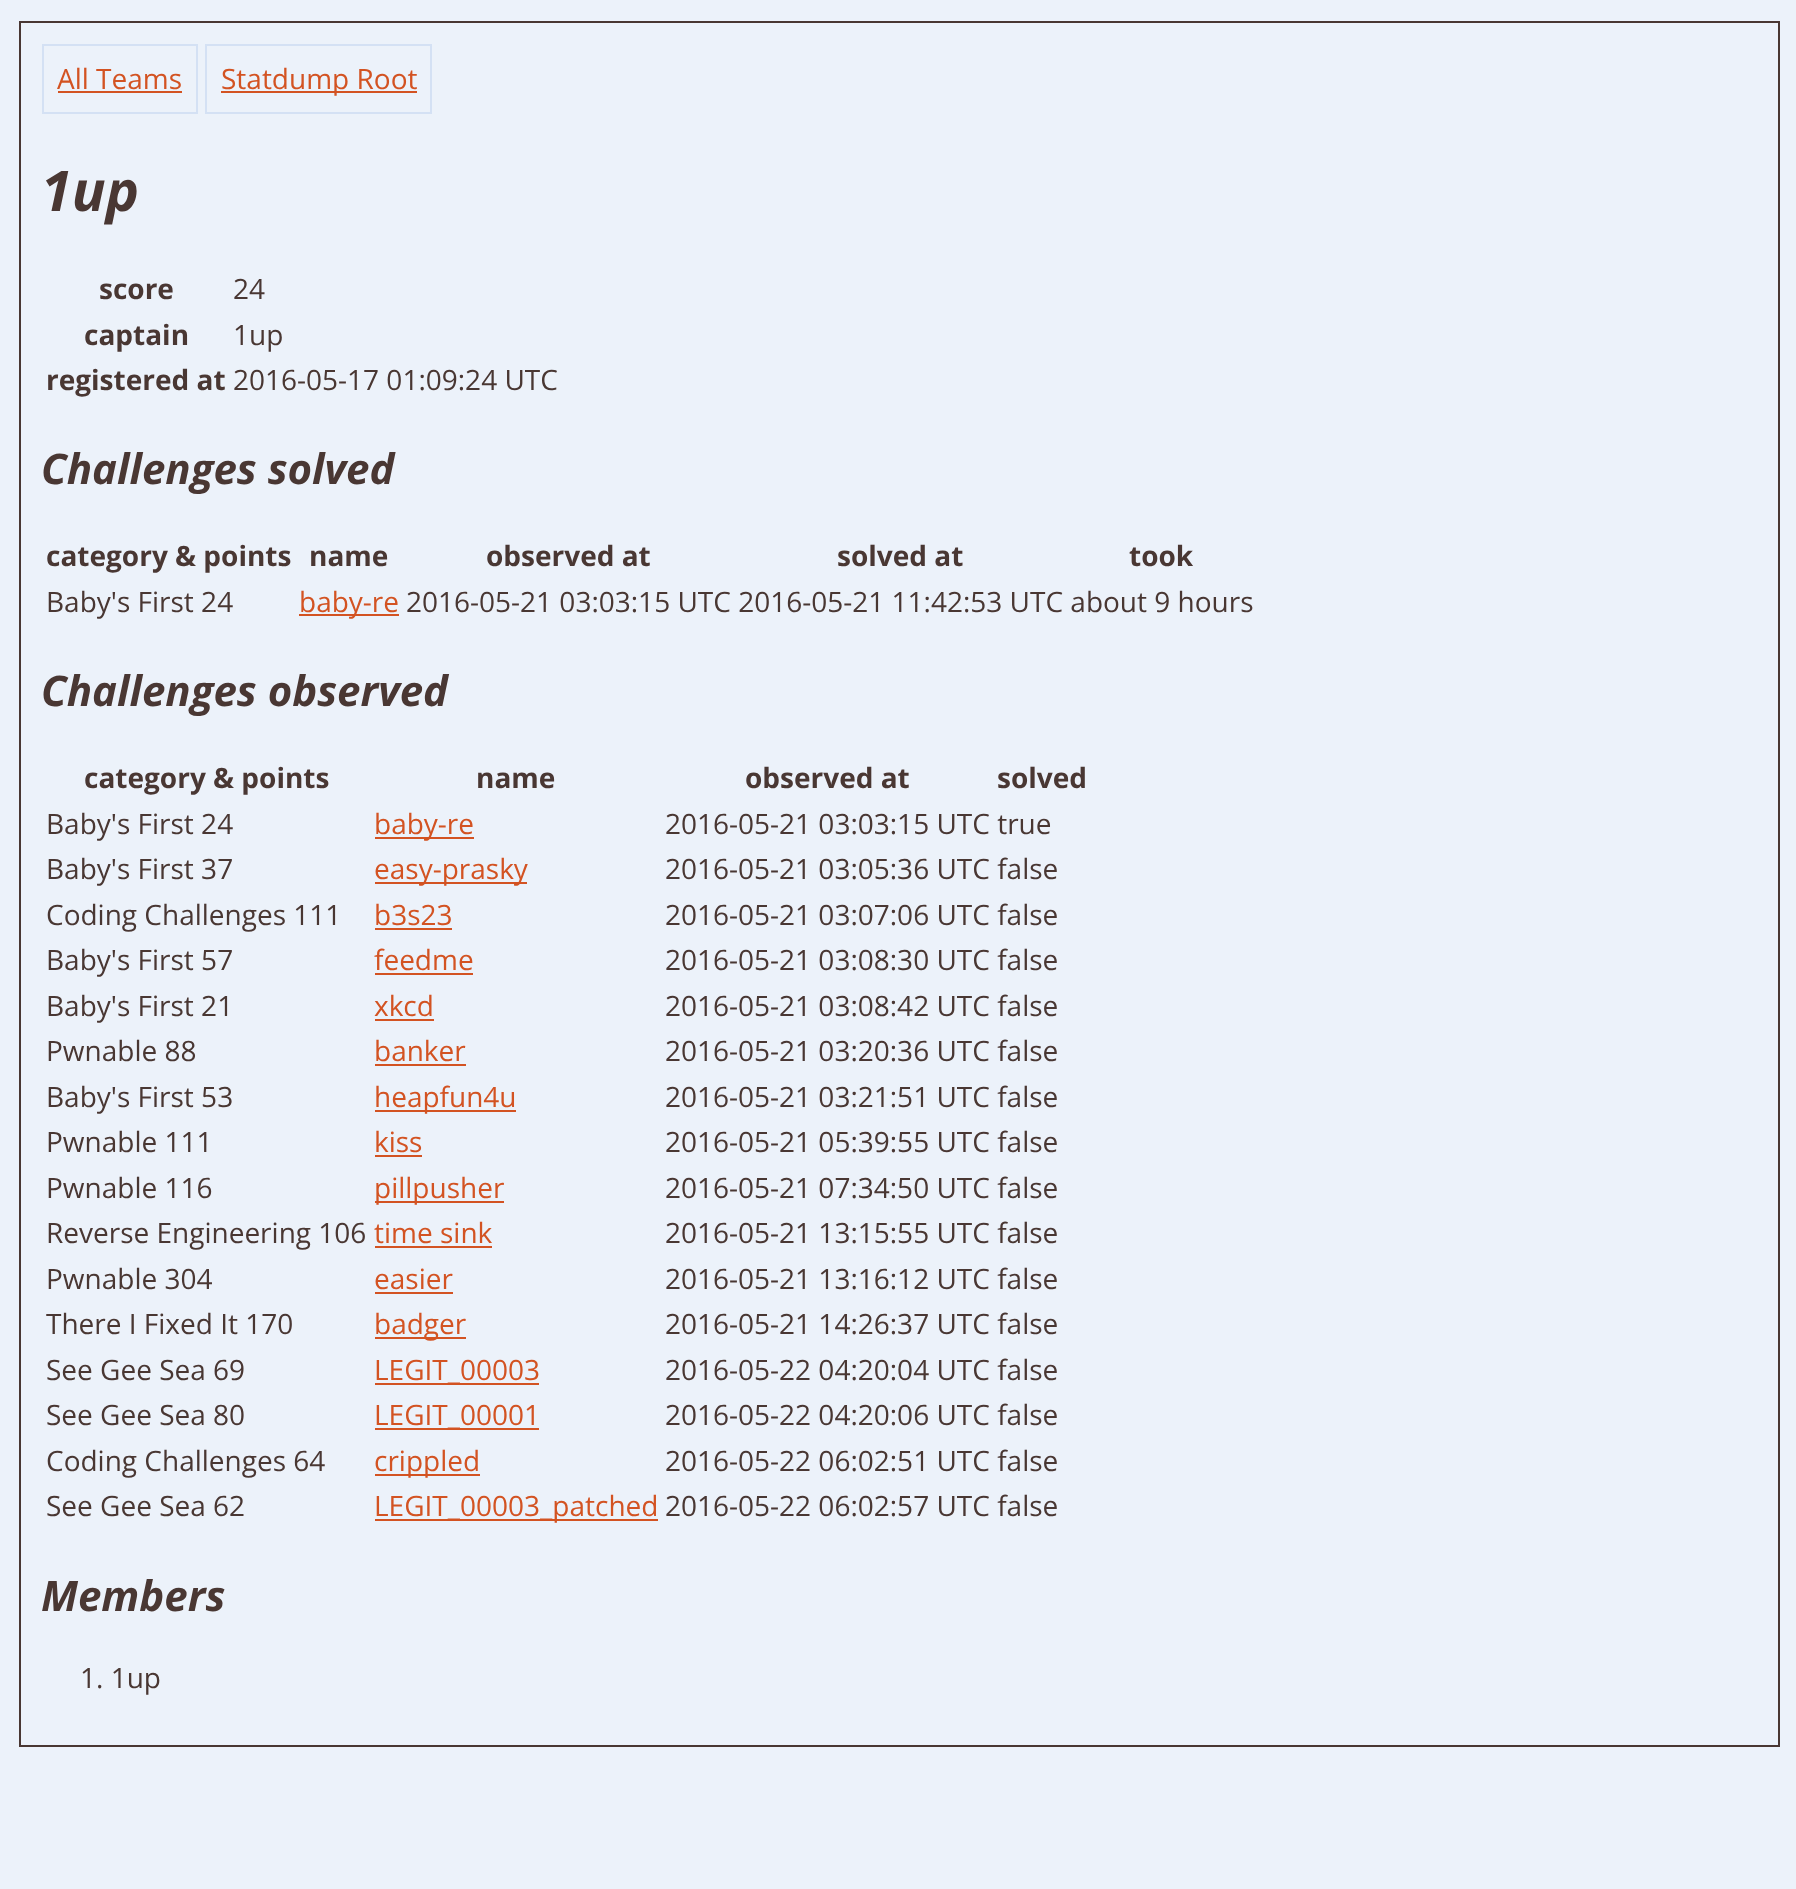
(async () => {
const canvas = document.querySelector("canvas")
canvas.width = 1796
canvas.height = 1889
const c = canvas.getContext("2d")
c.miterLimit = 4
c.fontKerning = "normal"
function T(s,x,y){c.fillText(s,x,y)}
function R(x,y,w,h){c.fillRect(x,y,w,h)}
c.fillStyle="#ecf2fa"
R(0,0,1796,1889)
c.strokeStyle="#493733"
c.lineWidth=2
c.strokeRect(20,22,1759,1724)
c.strokeStyle="#d4e1f4"
c.strokeRect(43,45,154,68)
c.font="28px Open Sans"
c.fillStyle="#d35322"
T("All Teams",57,89)
R(58,91,124,2)
c.strokeRect(206,45,225,68)
R(221,91,196,2)
T("Statdump Root",221,89)
c.font="italic bold 56px Open Sans"
c.fillStyle="#493733"
T("1up",41,211)
c.font="bold 28px Open Sans"
T("score",99,299)
c.font="28px Open Sans"
T("24",233,299)
c.font="bold 28px Open Sans"
T("captain",84,345)
c.font="28px Open Sans"
T("1up",233,345)
c.font="bold 28px Open Sans"
T("registered at",46,390)
c.font="28px Open Sans"
T("2016-05-17 01:09:24 UTC",233,390)
c.font="italic bold 42px Open Sans"
T("Challenges solved",41,484)
c.font="bold 28px Open Sans"
T("category & points",46,566)
T("name",309,566)
T("observed at",486,566)
T("solved at",837,566)
T("took",1129,566)
c.font="28px Open Sans"
T("Baby's First 24",46,612)
c.fillStyle="#d35322"
R(299,614,100,2)
T("baby-re",299,612)
c.fillStyle="#493733"
T("2016-05-21 03:03:15 UTC 2016-05-21 11:42:53 UTC about 9 hours",406,612)
c.font="italic bold 42px Open Sans"
T("Challenges observed",41,706)
c.font="bold 28px Open Sans"
T("category & points",84,788)
T("name",476,788)
T("observed at",745,788)
T("solved",997,788)
c.font="28px Open Sans"
T("Baby's First 24",46,834)
c.fillStyle="#d35322"
R(375,837,99,2)
T("baby-re",374,834)
c.fillStyle="#493733"
T("2016-05-21 03:03:15 UTC true",665,834)
T("Baby's First 37",46,879)
c.fillStyle="#d35322"
R(375,882,152,2)
T("easy-prasky",374,879)
c.fillStyle="#493733"
T("2016-05-21 03:05:36 UTC false",665,879)
T("Coding Challenges 111",46,925)
c.fillStyle="#d35322"
T("b3s23",374,925)
R(375,928,77,2)
c.fillStyle="#493733"
T("2016-05-21 03:07:06 UTC false",665,925)
T("Baby's First 57",46,970)
c.fillStyle="#d35322"
T("feedme",374,970)
R(375,973,98,2)
c.fillStyle="#493733"
T("2016-05-21 03:08:30 UTC false",665,970)
T("Baby's First 21",46,1016)
c.fillStyle="#d35322"
T("xkcd",374,1016)
R(375,1019,59,2)
c.fillStyle="#493733"
T("2016-05-21 03:08:42 UTC false",665,1016)
T("Pwnable 88",46,1061)
c.fillStyle="#d35322"
T("banker",374,1061)
R(375,1064,91,2)
c.fillStyle="#493733"
T("2016-05-21 03:20:36 UTC false",665,1061)
T("Baby's First 53",46,1107)
c.fillStyle="#d35322"
R(375,1110,141,2)
T("heapfun4u",374,1107)
c.fillStyle="#493733"
T("2016-05-21 03:21:51 UTC false",665,1107)
T("Pwnable 111",46,1152)
c.fillStyle="#d35322"
T("kiss",374,1152)
R(375,1155,47,2)
c.fillStyle="#493733"
T("2016-05-21 05:39:55 UTC false",665,1152)
T("Pwnable 116",46,1198)
c.fillStyle="#d35322"
R(375,1201,129,2)
T("pillpusher",374,1198)
c.fillStyle="#493733"
T("2016-05-21 07:34:50 UTC false",665,1198)
T("Reverse Engineering 106",46,1243)
c.fillStyle="#d35322"
T("time sink",374,1243)
R(375,1246,117,2)
c.fillStyle="#493733"
T("2016-05-21 13:15:55 UTC false",665,1243)
T("Pwnable 304",46,1289)
c.fillStyle="#d35322"
T("easier",374,1289)
R(375,1292,78,2)
c.fillStyle="#493733"
T("2016-05-21 13:16:12 UTC false",665,1289)
T("There I Fixed It 170",46,1334)
c.fillStyle="#d35322"
R(375,1337,91,2)
T("badger",374,1334)
c.fillStyle="#493733"
T("2016-05-21 14:26:37 UTC false",665,1334)
T("See Gee Sea 69",46,1380)
c.fillStyle="#d35322"
R(375,1383,164,2)
T("LEGIT_00003",374,1380)
c.fillStyle="#493733"
T("2016-05-22 04:20:04 UTC false",665,1380)
T("See Gee Sea 80",46,1425)
c.fillStyle="#d35322"
R(375,1428,164,2)
T("LEGIT_00001",374,1425)
c.fillStyle="#493733"
T("2016-05-22 04:20:06 UTC false",665,1425)
T("Coding Challenges 64",46,1471)
c.fillStyle="#d35322"
R(375,1474,105,2)
T("crippled",374,1471)
c.fillStyle="#493733"
T("2016-05-22 06:02:51 UTC false",665,1471)
T("See Gee Sea 62",46,1516)
c.fillStyle="#d35322"
R(375,1519,283,2)
T("LEGIT_00003_patched",374,1516)
c.fillStyle="#493733"
T("2016-05-22 06:02:57 UTC false",665,1516)
c.font="italic bold 42px Open Sans"
T("Members",41,1611)
c.font="28px Open Sans"
T("1. 1up",80,1688)
})()
